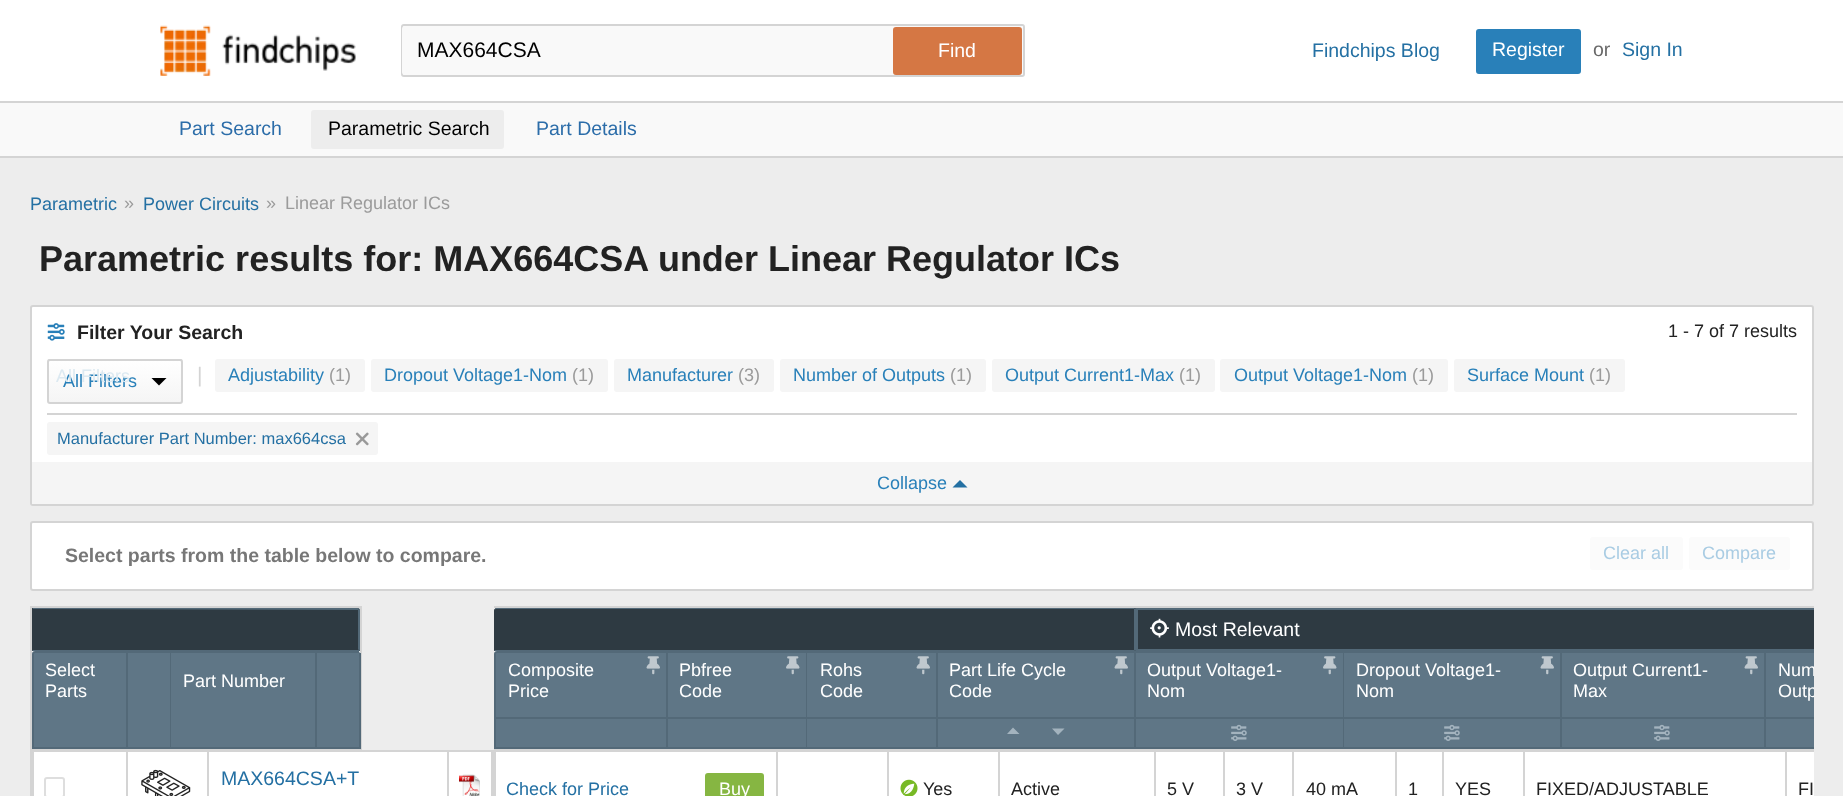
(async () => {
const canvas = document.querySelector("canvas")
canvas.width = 1843
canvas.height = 796
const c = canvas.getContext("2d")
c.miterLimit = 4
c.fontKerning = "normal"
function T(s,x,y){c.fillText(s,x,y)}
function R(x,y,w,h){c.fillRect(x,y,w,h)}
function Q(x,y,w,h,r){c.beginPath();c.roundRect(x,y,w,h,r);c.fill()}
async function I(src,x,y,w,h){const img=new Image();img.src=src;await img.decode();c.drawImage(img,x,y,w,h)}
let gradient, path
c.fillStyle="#ededed"
R(0,0,1843,796)
c.fillStyle="#fff"
R(0,0,1843,101)
c.fillStyle="#d4d4d4"
R(0,156,1843,2)
await I("1.png",160,25,196,51)
c.beginPath()
c.roundRect(402,25,622,51,2)
c.strokeStyle="#d4d4d4"
c.lineWidth=2
c.stroke()
c.fillStyle="#f9f9f9"
Q(402,26,621,49,3)
c.font="21px Liberation Sans"
c.fillStyle="#000"
T("MAX664CSA",417,57)
c.fillStyle="#d57744"
c.beginPath()
c.roundRect(894,28,127,46,2)
c.fill()
c.strokeStyle="#d57744"
c.stroke()
c.font="19.5px Liberation Sans"
c.fillStyle="#fff"
T("Find",938,57)
c.fillStyle="#2470a3"
T("Findchips Blog",1312,57)
c.fillStyle="#2980b9"
c.beginPath()
c.roundRect(1477,30,103,43,2)
c.fill()
c.strokeStyle="#2980b9"
c.stroke()
c.fillStyle="#fff"
T("Register",1492,56)
c.fillStyle="#696969"
T("or",1593,56)
c.fillStyle="#2470a3"
T("Sign In",1622,56)
c.fillStyle="#f9f9f9"
R(0,103,1843,53)
c.fillStyle="#d4d4d4"
R(0,101,1843,2)
c.fillStyle="#2c6da9"
T("Part Search",179,135)
c.fillStyle="#ededed"
Q(311,110,193,39,3)
c.fillStyle="#000"
T("Parametric Search",328,135)
c.fillStyle="#2c6da9"
T("Part Details",536,135)
c.font="18px Liberation Sans"
c.fillStyle="#2470a3"
T("Parametric",30,210)
c.fillStyle="#9b9b9b"
T("»",124,209)
c.fillStyle="#2470a3"
T("Power Circuits",143,210)
c.fillStyle="#9b9b9b"
T("»",266,209)
T("Linear Regulator ICs",285,209)
c.font="bold 36px Liberation Sans"
c.fillStyle="#222"
T("Parametric results for: MAX664CSA under Linear Regulator ICs",39,271)
c.fillStyle="#fff"
c.beginPath()
c.roundRect(31,306,1782,199,2)
c.fill()
c.strokeStyle="#d4d4d4"
c.stroke()
await I("2.png",47,323,18,18)
c.font="bold 19.5px Liberation Sans"
c.fillStyle="#222"
T("Filter Your Search",77,339)
c.font="18px Liberation Sans"
T("1 - 7 of 7 results",1668,337)
c.beginPath()
c.roundRect(48,360,134,34,2)
c.stroke()
c.save()
c.beginPath()
c.roundRect(47,359,136,45,3)
c.clip()
gradient = c.createLinearGradient(115,360,115,402)
gradient.addColorStop(0,"#fff")
gradient.addColorStop(1,"#f5f5f5")
c.fillStyle = gradient
R(47,360,136,42)
c.restore()
c.beginPath()
c.roundRect(48,360,134,43,2)
c.stroke()
c.fillStyle="#2980b9"
T("All Filters",63,387)
c.fillStyle="#dce9f1"
T("All Filters",56,382)
c.font="21px Liberation Sans"
c.fillStyle="#d4d4d4"
T("|",197,382)
c.fillStyle="#f5f5f5"
Q(215,359,150,33,3)
c.font="18px Liberation Sans"
c.fillStyle="#2980b9"
T("Adjustability",228,381)
c.fillStyle="#9b9b9b"
T("(1)",329,381)
c.fillStyle="#f5f5f5"
Q(371,359,237,33,3)
c.fillStyle="#2980b9"
T("Dropout Voltage1-Nom",384,381)
c.fillStyle="#9b9b9b"
T("(1)",572,381)
c.fillStyle="#f5f5f5"
Q(614,359,160,33,3)
c.fillStyle="#2980b9"
T("Manufacturer",627,381)
c.fillStyle="#9b9b9b"
T("(3)",738,381)
c.fillStyle="#f5f5f5"
Q(780,359,206,33,3)
c.fillStyle="#2980b9"
T("Number of Outputs",793,381)
c.fillStyle="#9b9b9b"
T("(1)",950,381)
c.fillStyle="#f5f5f5"
Q(992,359,223,33,3)
c.fillStyle="#2980b9"
T("Output Current1-Max",1005,381)
c.fillStyle="#9b9b9b"
T("(1)",1179,381)
c.fillStyle="#f5f5f5"
Q(1220,359,228,33,3)
c.fillStyle="#2980b9"
T("Output Voltage1-Nom",1234,381)
c.fillStyle="#9b9b9b"
T("(1)",1412,381)
c.fillStyle="#f5f5f5"
Q(1454,359,171,33,3)
c.fillStyle="#2980b9"
T("Surface Mount",1467,381)
c.fillStyle="#9b9b9b"
T("(1)",1589,381)
c.fillStyle="#000"
path = new Path2D("M151.5 378h15l-7.5 7.5z")
c.fill(path)
c.fillStyle="#d4d4d4"
R(47,413,1750,2)
c.fillStyle="#f5f5f5"
Q(47,422,331,33,3)
c.font="16.5px Liberation Sans"
c.fillStyle="#2470a3"
T("Manufacturer Part Number: max664csa",57,444)
await I("3.png",355,432,14,14)
c.fillStyle="#f5f5f5"
R(32,462,1780,42)
c.font="18px Liberation Sans"
c.fillStyle="#2980b9"
T("Collapse",877,489)
c.fillStyle="#2470a3"
path = new Path2D("M967.5 487.5h-15l7.5-7.5z")
c.fill(path)
c.fillStyle="#fff"
c.beginPath()
c.roundRect(31,522,1782,68,2)
c.fill()
c.stroke()
c.font="bold 19.5px Liberation Sans"
c.fillStyle="#777"
T("Select parts from the table below to compare.",65,562)
c.fillStyle="#fbfbfb"
Q(1590,537,93,33,3)
c.font="18px Liberation Sans"
c.fillStyle="#a9cce3"
T("Clear all",1603,559)
c.fillStyle="#fbfbfb"
Q(1689,537,101,33,3)
c.fillStyle="#a9cce3"
T("Compare",1702,559)
c.fillStyle="#fff"
R(32,608,328,46)
c.strokeRect(31,607,330,142)
c.fillStyle="#2e3a42"
c.beginPath()
c.roundRect(32,608,328,43,[0,3,0,0])
c.fill()
c.fillStyle="#536978"
path = new Path2D("M32 608l1 1l325 1l1-2h-2z")
c.fill(path)
path = new Path2D("M359 608l1 2v41l-2-2v-39z")
c.fill(path)
path = new Path2D("M360 651l-2-2v1h-325l-1 1z")
c.fill(path)
c.fillStyle="#2e3a42"
path = new Path2D("M33 609l-1-1v42h1z")
c.fill(path)
c.fillStyle="#5f7686"
c.beginPath()
c.roundRect(33,652,94,96,[2,0,0,0])
c.fill()
c.strokeStyle="#536978"
c.stroke()
c.fillStyle="#fff"
T("Select",45,676)
T("Parts",45,697)
c.fillStyle="#5f7686"
R(128,653,42,94)
c.fillStyle="#536978"
R(128,651,189,2)
R(170,651,1,98)
R(128,747,43,2)
c.fillStyle="#5f7686"
c.beginPath()
c.roundRect(317,651,43,98,[0,3,0,0])
c.fill()
c.fillStyle="#536978"
R(317,651,42,2)
R(359,653,2,96)
R(317,747,43,2)
c.fillStyle="#5f7686"
R(171,653,144,94)
c.fillStyle="#536978"
R(315,651,2,98)
R(171,747,146,2)
c.fillStyle="#fff"
T("Part Number",183,687)
R(34,752,457,44)
c.strokeStyle="#d4d4d4"
c.strokeRect(31,751,462,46)
c.fillStyle="#d4d4d4"
R(491,752,1,44)
R(32,752,2,44)
R(126,752,2,44)
c.beginPath()
c.roundRect(45,778,19,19,2)
c.strokeStyle="#dedede"
c.stroke()
R(207,752,2,44)
await I("4.png",141,769,50,27)
R(447,752,2,44)
c.font="19.5px Liberation Sans"
c.fillStyle="#2470a3"
T("MAX664CSA+T",221,785)
await I("5.png",459,774,21,22)
c.fillStyle="#fff"
R(494,608,3,46)
c.fillStyle="#d4d4d4"
R(494,606,1320,2)
R(494,749,1320,3)
c.fillStyle="#2e3a42"
c.beginPath()
c.roundRect(494,608,642,43,[3,0,0,0])
c.fill()
c.fillStyle="#536978"
path = new Path2D("M496 608l-1 1l1 1v-1h638l1-1z")
c.fill(path)
path = new Path2D("M1136 608v43l-2-1v-41z")
c.fill(path)
path = new Path2D("M1136 651l-2-1h-639l-1 1z")
c.fill(path)
c.save()
c.beginPath()
c.rect(494,606,1320,144)
c.clip()
c.fillStyle="#2e3a42"
path = new Path2D("M495 609c-2 1-1 37-1 41h1v-40h1z")
c.fill(path)
c.restore()
c.fillStyle="#2e3a42"
R(1138,610,676,39)
c.save()
c.beginPath()
c.rect(494,606,1320,144)
c.clip()
c.strokeStyle="#536978"
c.strokeRect(1137,609,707,41)
c.restore()
await I("6.png",1150,618,19,20)
c.fillStyle="#fff"
T("Most Relevant",1175,636)
c.fillStyle="#5f7686"
c.beginPath()
c.roundRect(495,652,172,96,[2,0,0,0])
c.fill()
c.strokeStyle="#536978"
c.stroke()
c.font="18px Liberation Sans"
c.fillStyle="#fff"
T("Composite",508,676)
await I("7.png",646,656,14,19)
T("Price",508,697)
c.fillStyle="#536978"
R(495,717,171,2)
c.fillStyle="#5f7686"
R(668,653,138,94)
c.fillStyle="#536978"
R(668,651,1146,2)
R(806,651,1,98)
R(668,747,139,2)
c.fillStyle="#fff"
T("Pbfree",679,676)
await I("8.png",786,656,14,19)
T("Code",679,697)
c.fillStyle="#536978"
R(668,717,138,2)
c.fillStyle="#5f7686"
R(807,653,129,94)
c.fillStyle="#536978"
R(936,651,2,98)
R(807,747,131,2)
c.fillStyle="#fff"
T("Rohs",820,676)
await I("7.png",916,656,14,19)
T("Code",820,697)
c.fillStyle="#536978"
R(807,717,129,2)
c.fillStyle="#5f7686"
R(938,653,196,94)
c.fillStyle="#536978"
R(1134,651,2,98)
R(938,747,198,2)
c.fillStyle="#fff"
T("Part Life Cycle",949,676)
await I("7.png",1114,656,14,19)
T("Code",949,697)
c.fillStyle="#536978"
R(938,717,196,2)
c.fillStyle="#a3b3be"
path = new Path2D("M1013 727.5l6.5 6.5h-12.5zm45 7.5l-6-6.5h12.5z")
c.fill(path)
c.fillStyle="#5f7686"
R(1136,653,207,94)
c.fillStyle="#536978"
R(1343,651,1,98)
R(1136,747,208,2)
c.fillStyle="#fff"
T("Output Voltage1-",1147,676)
await I("8.png",1323,656,14,19)
T("Nom",1147,697)
c.fillStyle="#536978"
R(1136,717,207,2)
await I("9.png",1231,724,16,17)
c.fillStyle="#5f7686"
R(1344,653,216,94)
c.fillStyle="#536978"
R(1560,651,2,98)
R(1344,747,218,2)
c.fillStyle="#fff"
T("Dropout Voltage1-",1356,676)
await I("7.png",1540,656,14,19)
T("Nom",1356,697)
c.fillStyle="#536978"
R(1344,717,216,2)
await I("9.png",1444,724,16,17)
c.fillStyle="#5f7686"
R(1562,653,202,94)
c.fillStyle="#536978"
R(1764,651,2,98)
R(1562,747,252,2)
c.fillStyle="#fff"
T("Output Current1-",1573,676)
await I("7.png",1744,656,14,19)
T("Max",1573,697)
c.fillStyle="#536978"
R(1562,717,202,2)
await I("9.png",1654,724,16,17)
c.fillStyle="#5f7686"
R(1766,653,48,94)
c.save()
c.beginPath()
c.rect(494,606,1320,144)
c.clip()
c.fillStyle="#fff"
T("Num",1778,676)
T("Outp",1778,697)
c.restore()
c.fillStyle="#536978"
R(1766,717,48,2)
c.fillStyle="#fff"
R(496,752,1318,44)
c.fillStyle="#d4d4d4"
R(494,752,2,44)
R(776,752,2,44)
c.fillStyle="#2470a3"
T("Check for Price",506,795)
c.fillStyle="#86b642"
c.beginPath()
c.roundRect(706,774,57,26,2)
c.fill()
c.strokeStyle="#86b642"
c.stroke()
c.fillStyle="#fff"
T("Buy",719,795)
c.fillStyle="#d4d4d4"
R(887,752,2,44)
R(998,752,2,44)
await I("10.png",900,779,18,17)
c.fillStyle="#222"
T("Yes",923,795)
c.fillStyle="#d4d4d4"
R(1154,752,2,44)
c.fillStyle="#222"
T("Active",1011,795)
c.fillStyle="#d4d4d4"
R(1223,752,2,44)
c.fillStyle="#222"
T("5 V",1167,795)
c.fillStyle="#d4d4d4"
R(1292,752,2,44)
c.fillStyle="#222"
T("3 V",1236,795)
c.fillStyle="#d4d4d4"
R(1395,752,2,44)
c.fillStyle="#222"
T("40 mA",1306,795)
c.fillStyle="#d4d4d4"
R(1442,752,2,44)
c.fillStyle="#222"
T("1",1408,795)
c.fillStyle="#d4d4d4"
R(1523,752,2,44)
c.fillStyle="#222"
T("YES",1455,795)
c.fillStyle="#d4d4d4"
R(1785,752,2,44)
c.fillStyle="#222"
T("FIXED/ADJUSTABLE",1536,795)
T("FI",1798,795)
})()
